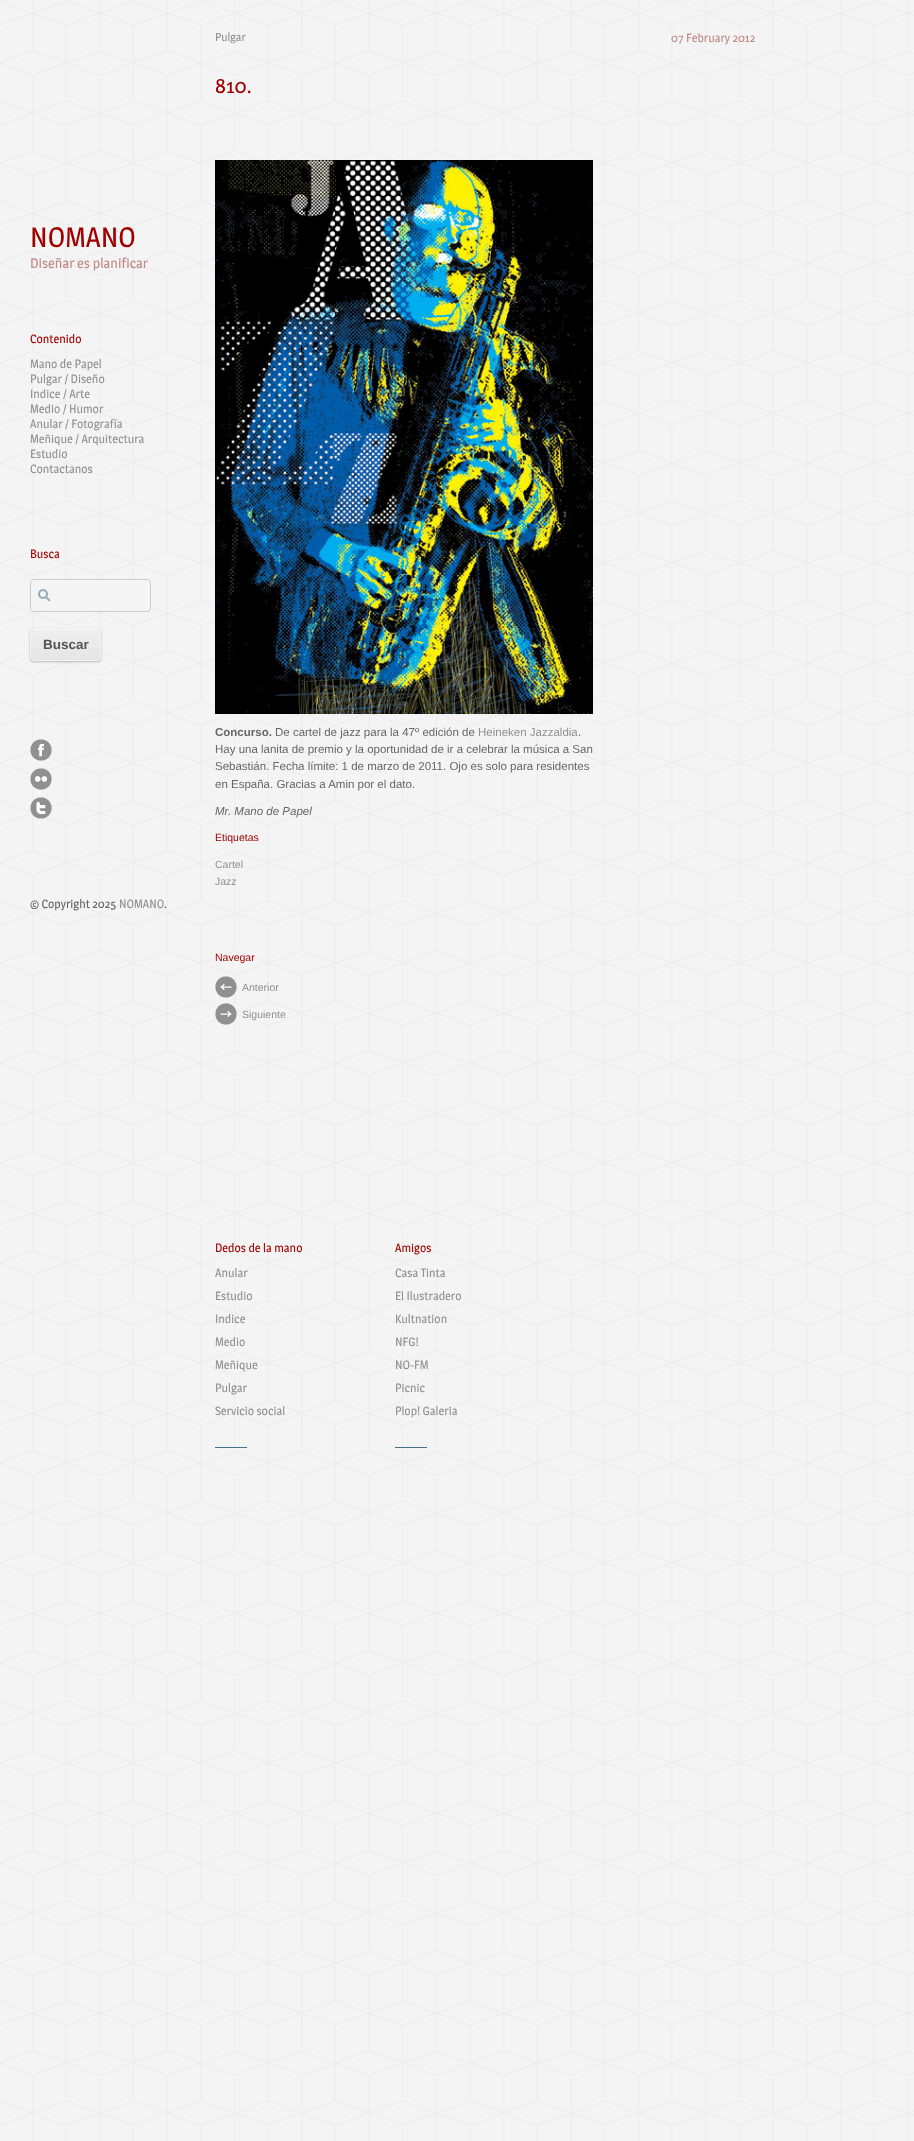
(async () => {
const canvas = document.querySelector("canvas")
canvas.width = 914
canvas.height = 2141
const c = canvas.getContext("2d")
c.miterLimit = 4
c.fontKerning = "normal"
function T(s,x,y){c.fillText(s,x,y)}
function R(x,y,w,h){c.fillRect(x,y,w,h)}
function Q(x,y,w,h,r){c.beginPath();c.roundRect(x,y,w,h,r);c.fill()}
async function I(src,x,y,w,h){const img=new Image();img.src=src;await img.decode();c.drawImage(img,x,y,w,h)}
let gradient, path
c.fillStyle="#fff"
R(0,0,914,2141)
await I("1.png",0,0,914,2141)
c.font="28px Magra"
c.fillStyle="#a10000"
T("NOMANO",30,247)
c.font="14px Magra"
c.fillStyle="#c28888"
T("Diseñar es planificar",30,268)
c.font="12px Magra"
c.fillStyle="#a10000"
T("Contenido",30,343)
c.fillStyle="#909090"
T("Mano de Papel",30,368)
T("Pulgar / Diseño",30,383)
T("Indice / Arte",30,398)
T("Medio / Humor",30,413)
T("Anular / Fotografía",30,428)
T("Meñique / Arquitectura",30,443)
T("Estudio",30,458)
T("Contactanos",30,473)
c.fillStyle="#a10000"
T("Busca",30,558)
c.fillStyle="#f5f5f5"
Q(30,579,121,33,4)
await I("2.png",38,589,13,13)
c.beginPath()
c.roundRect(30.5,579.5,120,32,3.5)
c.strokeStyle="#ccc"
c.stroke()
c.fillStyle="#00000040"
c.filter="blur(1px)"
c.beginPath()
c.roundRect(30,629,71,33,4)
c.fill()
c.filter="none"
c.save()
c.beginPath()
c.roundRect(30,628,71,33,4)
c.clip()
gradient = c.createLinearGradient(66,629,66,660)
gradient.addColorStop(0,"#efefef")
gradient.addColorStop(1,"#e5e5e5")
c.fillStyle = gradient
R(30,629,71,31)
c.restore()
c.fillStyle="#ffffff66"
path = new Path2D("M34 630h63c2 0 3 1 3 3c0-7-9-4-14-4h-42c-4 0-13-3-13 4c0-2 1-3 3-3z")
c.fill(path)
c.beginPath()
c.roundRect(30.5,628.5,70,32,3.5)
c.strokeStyle="#f1f2f3"
c.stroke()
c.font="bold 13.5px Liberation Sans"
c.fillStyle="#555"
T("Buscar",43,649)
await I("3.png",30,739,22,22)
await I("4.png",30,768,22,22)
await I("5.png",30,797,22,22)
c.font="12px Magra"
c.fillStyle="#666"
T("© Copyright 2025",30,908)
c.fillStyle="#909090"
T("NOMANO",119,908)
c.fillStyle="#666"
T(".",164,908)
c.font="11.5px Magra"
c.fillStyle="#909090"
T("Pulgar",215,41)
c.font="12px Magra"
c.fillStyle="#c28888"
T("07 February 2012",671,42)
c.font="21px Magra"
c.fillStyle="#a10000"
T("810.",215,93)
await I("6.png",215,160,378,554)
c.font="bold 11.5px Liberation Sans"
c.fillStyle="#666"
T("Concurso.",215,736)
c.font="11.5px Liberation Sans"
T("De cartel de jazz para la 47º edición de",275,736)
c.fillStyle="#909090"
T("Heineken Jazzaldia",478,736)
c.fillStyle="#666"
T(".",578,736)
T("Hay una lanita de premio y la oportunidad de ir a celebrar la música a San",215,753)
T("Sebastián. Fecha límite: 1 de marzo de 2011. Ojo es solo para residentes",215,770)
T("en España. Gracias a Amin por el dato.",215,788)
c.font="italic 11.5px Liberation Sans"
T("Mr. Mano de Papel",215,815)
c.font="10.5px Liberation Sans"
c.fillStyle="#a10000"
T("Etiquetas",215,841)
c.fillStyle="#909090"
T("Cartel",215,868)
T("Jazz",215,885)
c.fillStyle="#a10000"
T("Navegar",215,961)
await I("7.png",215,976,22,22)
c.fillStyle="#909090"
T("Anterior",242,991)
await I("8.png",215,1003,22,22)
T("Siguiente",242,1018)
c.fillStyle="#49708a"
R(215,1447,32,1)
c.font="12px Magra"
c.fillStyle="#a10000"
T("Dedos de la mano",215,1252)
c.fillStyle="#909090"
T("Anular",215,1277)
T("Estudio",215,1300)
T("Indice",215,1323)
T("Medio",215,1346)
T("Meñique",215,1369)
T("Pulgar",215,1392)
T("Servicio social",215,1415)
c.fillStyle="#49708a"
R(395,1447,32,1)
c.fillStyle="#a10000"
T("Amigos",395,1252)
c.fillStyle="#909090"
T("Casa Tinta",395,1277)
T("El Ilustradero",395,1300)
T("Kultnation",395,1323)
T("NFG!",395,1346)
T("NO-FM",395,1369)
T("Picnic",395,1392)
T("Plop! Galeria",395,1415)
})()
